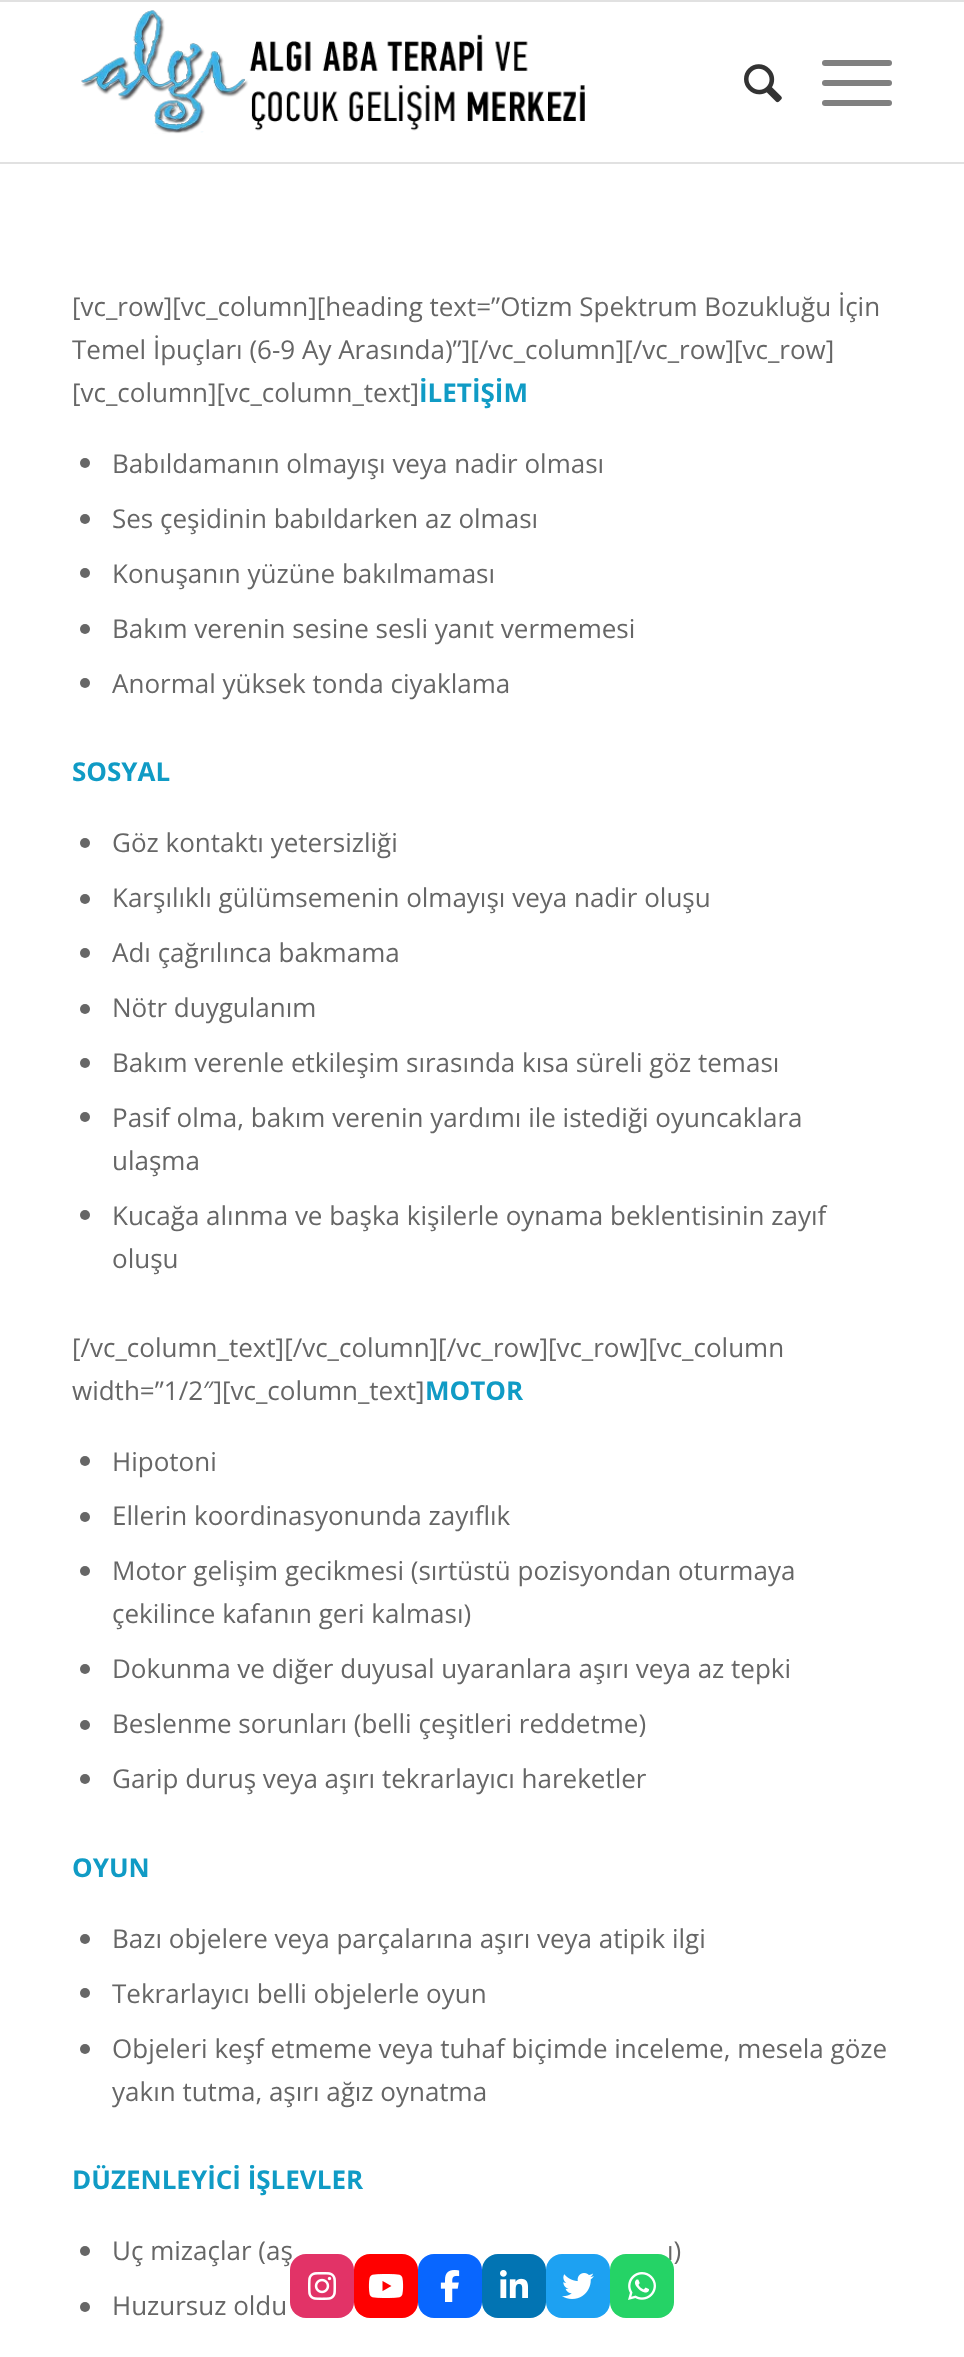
(async () => {
const canvas = document.querySelector("canvas")
canvas.width = 964
canvas.height = 2357
const c = canvas.getContext("2d")
c.miterLimit = 4
c.fontKerning = "normal"
function T(s,x,y){c.fillText(s,x,y)}
function R(x,y,w,h){c.fillRect(x,y,w,h)}
function Q(x,y,w,h,r){c.beginPath();c.roundRect(x,y,w,h,r);c.fill()}
async function I(src,x,y,w,h){const img=new Image();img.src=src;await img.decode();c.drawImage(img,x,y,w,h)}
c.fillStyle="#fff"
R(0,0,964,2357)
c.fillStyle="#e1e1e1"
R(0,0,964,2)
R(0,162,964,2)
await I("1.png",81,10,504,124)
await I("2.png",744,64,38,39)
c.fillStyle="#808080"
Q(822,80,70,6,3)
Q(822,60,70,6,3)
Q(822,100,70,6,3)
c.font="26px Open Sans"
c.fillStyle="#666"
T("[vc_row][vc_column][heading text=”Otizm Spektrum Bozukluğu İçin",72,316)
T("Temel İpuçları (6-9 Ay Arasında)”][/vc_column][/vc_row][vc_row]",72,359)
T("[vc_column][vc_column_text]",72,402)
c.font="bold 26px Open Sans"
c.fillStyle="#109bc5"
T("İLETİŞİM",419,402)
c.fillStyle="#666"
c.beginPath()
c.arc(85,463,5,0,7)
c.fill()
c.font="26px Open Sans"
T("Babıldamanın olmayışı veya nadir olması",112,473)
c.beginPath()
c.arc(85,519,5,0,7)
c.fill()
T("Ses çeşidinin babıldarken az olması",112,528)
c.beginPath()
c.arc(85,573,5,0,7)
c.fill()
T("Konuşanın yüzüne bakılmaması",112,583)
c.beginPath()
c.arc(85,629,5,0,7)
c.fill()
T("Bakım verenin sesine sesli yanıt vermemesi",112,638)
c.beginPath()
c.arc(85,683,5,0,7)
c.fill()
T("Anormal yüksek tonda ciyaklama",112,693)
c.font="bold 26px Open Sans"
c.fillStyle="#109bc5"
T("SOSYAL",72,781)
c.fillStyle="#666"
c.beginPath()
c.arc(85,843,5,0,7)
c.fill()
c.font="26px Open Sans"
T("Göz kontaktı yetersizliği",112,852)
c.beginPath()
c.arc(85,899,5,0,7)
c.fill()
T("Karşılıklı gülümsemenin olmayışı veya nadir oluşu",112,907)
c.beginPath()
c.arc(85,953,5,0,7)
c.fill()
T("Adı çağrılınca bakmama",112,962)
c.beginPath()
c.arc(85,1009,5,0,7)
c.fill()
T("Nötr duygulanım",112,1017)
c.beginPath()
c.arc(85,1063,5,0,7)
c.fill()
T("Bakım verenle etkileşim sırasında kısa süreli göz teması",112,1072)
c.beginPath()
c.arc(85,1117,5,0,7)
c.fill()
T("Pasif olma, bakım verenin yardımı ile istediği oyuncaklara",112,1127)
T("ulaşma",112,1170)
c.beginPath()
c.arc(85,1215,5,0,7)
c.fill()
T("Kucağa alınma ve başka kişilerle oynama beklentisinin zayıf",112,1225)
T("oluşu",112,1268)
T("[/vc_column_text][/vc_column][/vc_row][vc_row][vc_column",72,1357)
T("width=”1/2″][vc_column_text]",72,1400)
c.font="bold 26px Open Sans"
c.fillStyle="#109bc5"
T("MOTOR",425,1400)
c.fillStyle="#666"
c.beginPath()
c.arc(85,1461,5,0,7)
c.fill()
c.font="26px Open Sans"
T("Hipotoni",112,1471)
c.beginPath()
c.arc(85,1517,5,0,7)
c.fill()
T("Ellerin koordinasyonunda zayıflık",112,1525)
c.beginPath()
c.arc(85,1571,5,0,7)
c.fill()
T("Motor gelişim gecikmesi (sırtüstü pozisyondan oturmaya",112,1580)
T("çekilince kafanın geri kalması)",112,1623)
c.beginPath()
c.arc(85,1669,5,0,7)
c.fill()
T("Dokunma ve diğer duyusal uyaranlara aşırı veya az tepki",112,1678)
c.beginPath()
c.arc(85,1725,5,0,7)
c.fill()
T("Beslenme sorunları (belli çeşitleri reddetme)",112,1733)
c.beginPath()
c.arc(85,1779,5,0,7)
c.fill()
T("Garip duruş veya aşırı tekrarlayıcı hareketler",112,1788)
c.font="bold 26px Open Sans"
c.fillStyle="#109bc5"
T("OYUN",72,1877)
c.fillStyle="#666"
c.beginPath()
c.arc(85,1939,5,0,7)
c.fill()
c.font="26px Open Sans"
T("Bazı objelere veya parçalarına aşırı veya atipik ilgi",112,1948)
c.beginPath()
c.arc(85,1993,5,0,7)
c.fill()
T("Tekrarlayıcı belli objelerle oyun",112,2003)
c.beginPath()
c.arc(85,2049,5,0,7)
c.fill()
T("Objeleri keşf etmeme veya tuhaf biçimde inceleme, mesela göze",112,2058)
T("yakın tutma, aşırı ağız oynatma",112,2101)
c.font="bold 26px Open Sans"
c.fillStyle="#109bc5"
T("DÜZENLEYİCİ İŞLEVLER",72,2189)
c.fillStyle="#666"
c.beginPath()
c.arc(85,2251,5,0,7)
c.fill()
c.font="26px Open Sans"
T("Uç mizaçlar (aş",112,2260)
T("ı)",667,2260)
c.beginPath()
c.arc(85,2307,5,0,7)
c.fill()
T("Huzursuz oldu",112,2315)
c.fillStyle="#e23367"
Q(290,2254,64,64,16)
await I("3.png",308,2272,28,28)
c.fillStyle="#f00"
Q(354,2254,64,64,16)
await I("4.png",368,2274,36,24)
c.fillStyle="#0866ff"
Q(418,2254,64,64,16)
await I("5.png",440,2270,20,32)
c.fillStyle="#0274b3"
Q(482,2254,64,64,16)
await I("6.png",500,2270,28,28)
c.fillStyle="#1da1f2"
Q(546,2254,64,64,16)
await I("7.png",562,2273,32,26)
c.fillStyle="#25d366"
Q(610,2254,64,64,16)
await I("8.png",628,2272,28,28)
})()
